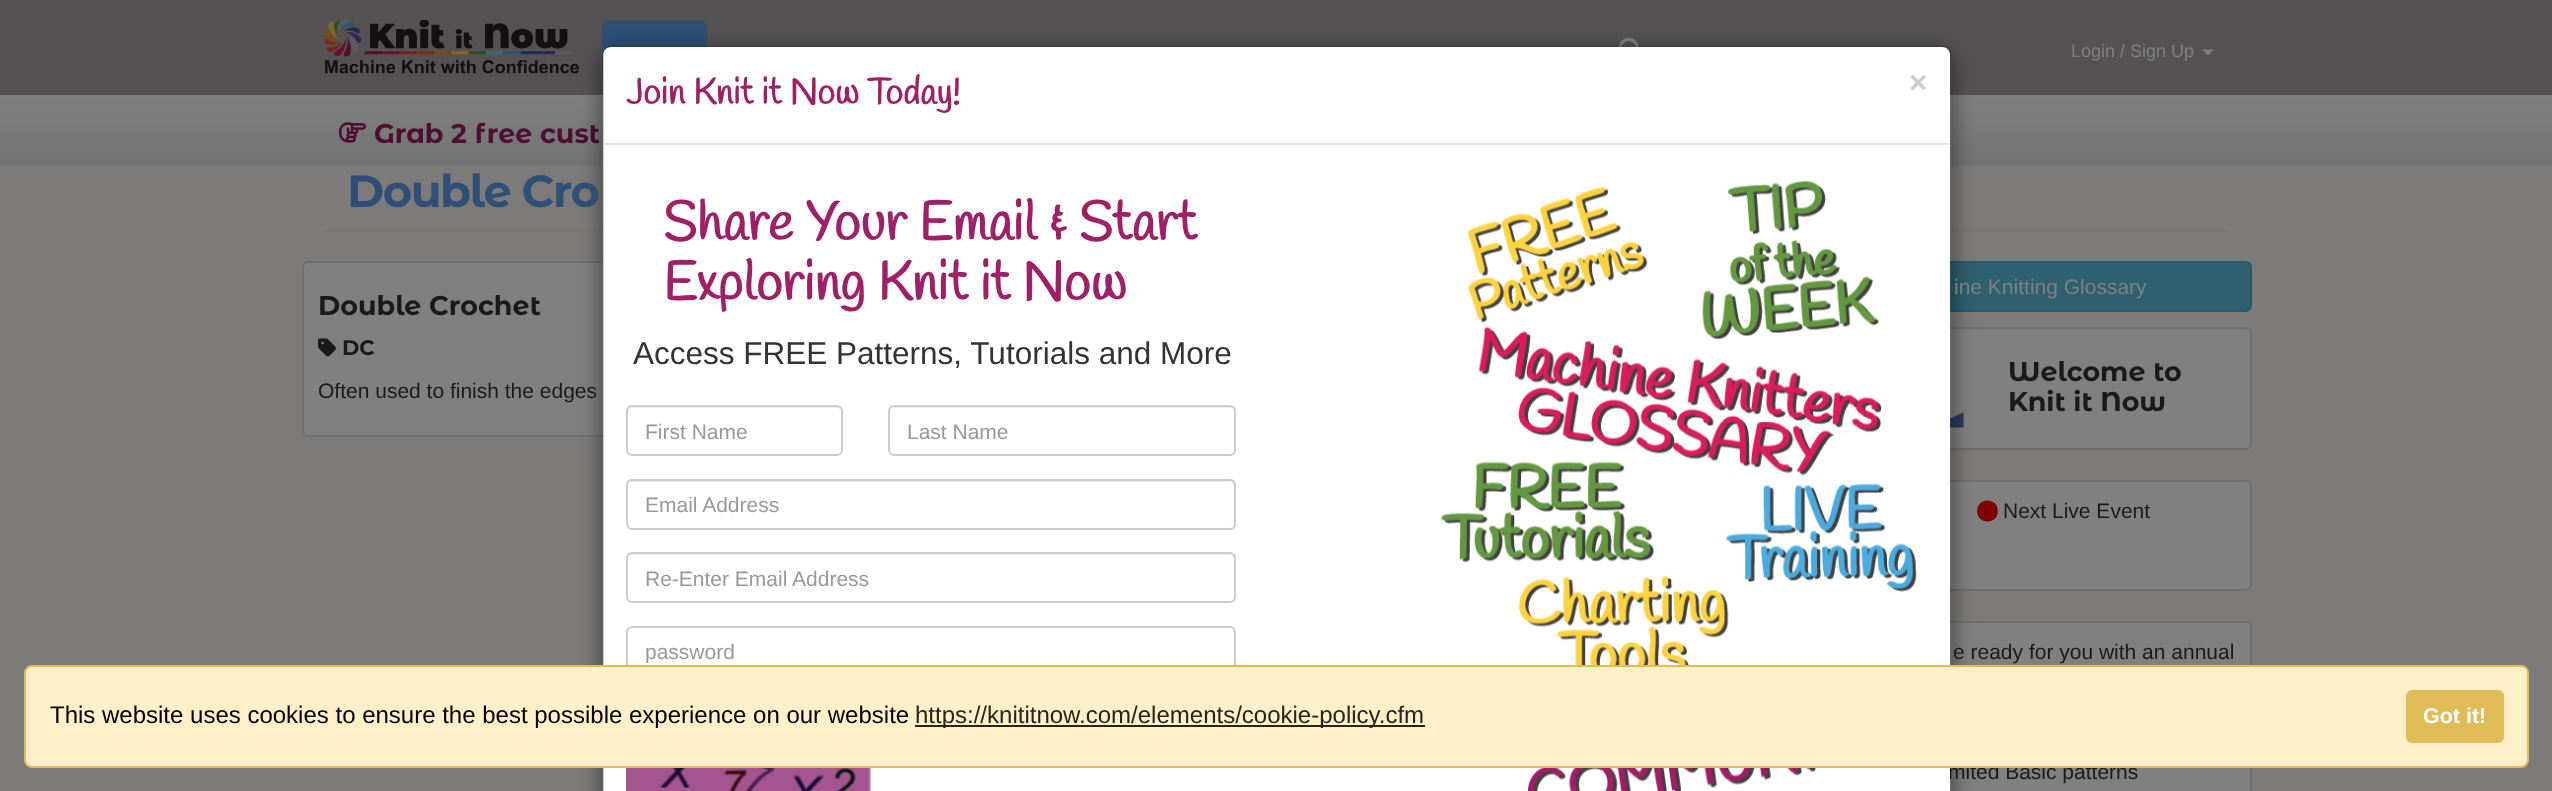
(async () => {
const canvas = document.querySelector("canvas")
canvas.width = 2552
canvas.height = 791
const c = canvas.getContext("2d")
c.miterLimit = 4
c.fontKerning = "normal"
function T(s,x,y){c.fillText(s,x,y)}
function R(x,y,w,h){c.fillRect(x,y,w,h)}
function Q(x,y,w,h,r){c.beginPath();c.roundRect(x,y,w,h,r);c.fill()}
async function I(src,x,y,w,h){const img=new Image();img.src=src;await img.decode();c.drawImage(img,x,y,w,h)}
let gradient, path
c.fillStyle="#7c7b7a"
R(0,0,2552,791)
c.fillStyle="#545252"
R(0,0,2552,95)
c.fillStyle="#747474"
R(0,164,2552,2)
await I("1.png",324,20,255,54)
c.fillStyle="#2f4f77"
Q(602,21,105,60,6)
await I("2.png",1618,38,21,9)
c.font="18px Liberation Sans"
c.fillStyle="#808080"
T("Login / Sign Up",2071,57)
path = new Path2D("M2202 49.5h12l-6 6z")
c.fill(path)
gradient = c.createLinearGradient(1277,94,1277,164)
gradient.addColorStop(0,"#808080")
gradient.addColorStop(1,"#737373")
c.fillStyle = gradient
R(0,95,2552,69)
await I("3.png",339,122,27,21)
c.font="bold 27px Montserrat Alternates"
c.fillStyle="#4d0f32"
T("Grab 2 free cust",374,143)
c.fillStyle="#777"
R(324,230,1905,2)
c.fillStyle="#808080"
c.beginPath()
c.roundRect(303,262,1450,174,5)
c.fill()
c.strokeStyle="#6f6f6f"
c.lineWidth=2
c.stroke()
c.fillStyle="#2e606f"
c.beginPath()
c.roundRect(1800,262,451,49,5)
c.fill()
c.strokeStyle="#235c6d"
c.stroke()
c.fillStyle="#808080"
c.beginPath()
c.roundRect(1800,328,451,121,5)
c.fill()
c.strokeStyle="#6f6f6f"
c.stroke()
await I("7.png",1950,343,14,85)
c.beginPath()
c.roundRect(1800,481,451,109,5)
c.fill()
c.stroke()
c.fillStyle="#800000"
path = new Path2D("M1987.5 521.5c14 0 13.5-21 0-21c-13.5 0-14 21 0 21z")
c.fill(path)
c.fillStyle="#808080"
c.beginPath()
c.roundRect(1800,622,451,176,5)
c.fill()
c.stroke()
c.save()
path = new Path2D("M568 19h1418v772h-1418zm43 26h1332c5 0 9 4 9 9v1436c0 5-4 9-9 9h-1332c-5 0-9-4-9-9v-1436c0-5 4-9 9-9z")
c.clip(path,"evenodd")
c.fillStyle="#00000080"
c.filter="blur(11px)"
c.beginPath()
c.roundRect(602,53,1350,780,9)
c.fill()
c.filter="none"
c.restore()
c.font="21px Liberation Sans"
c.fillStyle="#1a1a1a"
T("mited Basic patterns",1948,779)
c.fillStyle="#fff"
path = new Path2D("M611 47h1331c4.5 0 8 3.5 8 8v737h-1347v-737c0-4.5 3.5-8 8-8z")
c.fill(path)
c.beginPath()
c.roundRect(603,46,1348,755,8)
c.strokeStyle="#00000033"
c.stroke()
c.fillStyle="#e5e5e5"
R(603,143,1347,2)
c.font="bold 36px Handlee"
c.fillStyle="#9e2065"
T("Join Knit it Now Today!",626,104)
c.font="bold 31.5px Liberation Sans"
c.fillStyle="#ccc"
T("×",1909,93)
c.font="bold 54px Handlee"
c.fillStyle="#9e2065"
T("Share Your Email & Start",663,240)
T("Exploring Knit it Now",663,300)
c.font="31.5px Liberation Sans"
c.fillStyle="#333"
T("Access FREE Patterns, Tutorials and More",633,364)
c.fillStyle="#ececec"
path = new Path2D("M632 408h205c2 0 5 2 5 4c0-3-2-5-5-5h-205c-3 0-5 2-5 5c0-2 2-4 5-4z")
c.fill(path)
c.beginPath()
c.roundRect(627,406,215,49,5)
c.strokeStyle="#ccc"
c.stroke()
c.font="21px Liberation Sans"
c.fillStyle="#999"
T("First Name",645,439)
c.fillStyle="#ececec"
path = new Path2D("M894 408h336c2 0 4 2 4 4v41c1-1 1-2 1-3v-38c0-3-2-5-5-5h-335c-3 0-5 2-5 5c0-2 2-4 4-4z")
c.fill(path)
c.beginPath()
c.roundRect(889,406,346,49,5)
c.stroke()
c.fillStyle="#999"
T("Last Name",907,439)
c.fillStyle="#ececec"
path = new Path2D("M632 482h598c2 0 4 2 4 4v40c1-1 1-2 1-3v-38c0-3-2-5-5-5h-598c-3 0-5 2-5 5v1c0-2 2-4 5-4z")
c.fill(path)
c.beginPath()
c.roundRect(627,480,608,49,5)
c.stroke()
c.fillStyle="#999"
T("Email Address",645,512)
c.fillStyle="#ececec"
path = new Path2D("M632 555h598c2 0 4 2 4 5v38l-1 3c1-1 2-3 2-4v-38c0-3-2-5-5-5h-598c-3 0-5 2-5 5v1c0-3 2-5 5-5z")
c.fill(path)
c.beginPath()
c.roundRect(627,553,608,49,5)
c.stroke()
c.fillStyle="#999"
T("Re-Enter Email Address",645,586)
c.fillStyle="#ececec"
path = new Path2D("M632 628h598c2 0 4 3 4 5v40c1-1 1-2 1-3v-38c0-3-2-5-5-5h-598c-3 0-5 2-5 5v1c0-2 2-5 5-5z")
c.fill(path)
c.beginPath()
c.roundRect(627,627,608,49,5)
c.stroke()
c.save()
c.beginPath()
c.rect(645,639,572,24)
c.clip()
c.fillStyle="#999"
T("password",645,659)
c.restore()
await I("4.png",626,768,245,23)
await I("5.png",1441,180,476,611)
c.letterSpacing="-1.5px"
c.font="bold 45px Montserrat Alternates"
c.fillStyle="#2f4f77"
T("Double Cro",347,207)
c.letterSpacing="0px"
c.font="bold 27px Montserrat Alternates"
c.fillStyle="#1a1a1a"
T("Double Crochet",318,315)
await I("6.png",318,338,18,19)
c.font="bold 21px Montserrat Alternates"
T("DC",342,355)
c.font="21px Liberation Sans"
T("Often used to finish the edges",318,398)
c.fillStyle="#808080"
T("ine Knitting Glossary",1954,294)
c.font="bold 27px Montserrat Alternates"
c.fillStyle="#1a1a1a"
T("Welcome to",2008,381)
T("Knit it Now",2008,411)
c.font="21px Liberation Sans"
T("Next Live Event",2003,518)
T("e ready for you with an annual",1953,659)
c.fillStyle="#fff0ca"
c.beginPath()
c.roundRect(25,666,2503,101,7)
c.fill()
c.strokeStyle="#e0bc57"
c.stroke()
c.font="24px Liberation Sans"
c.fillStyle="#000"
T("This website uses cookies to ensure the best possible experience on our website",50,723)
c.fillStyle="#26241e"
R(915,725,510,2)
T("https://knititnow.com/elements/cookie-policy.cfm",915,723)
c.fillStyle="#e0bc57"
Q(2406,690,98,53,6)
c.font="bold 21.5px Liberation Sans"
c.fillStyle="#fff"
T("Got it!",2423,723)
})()
